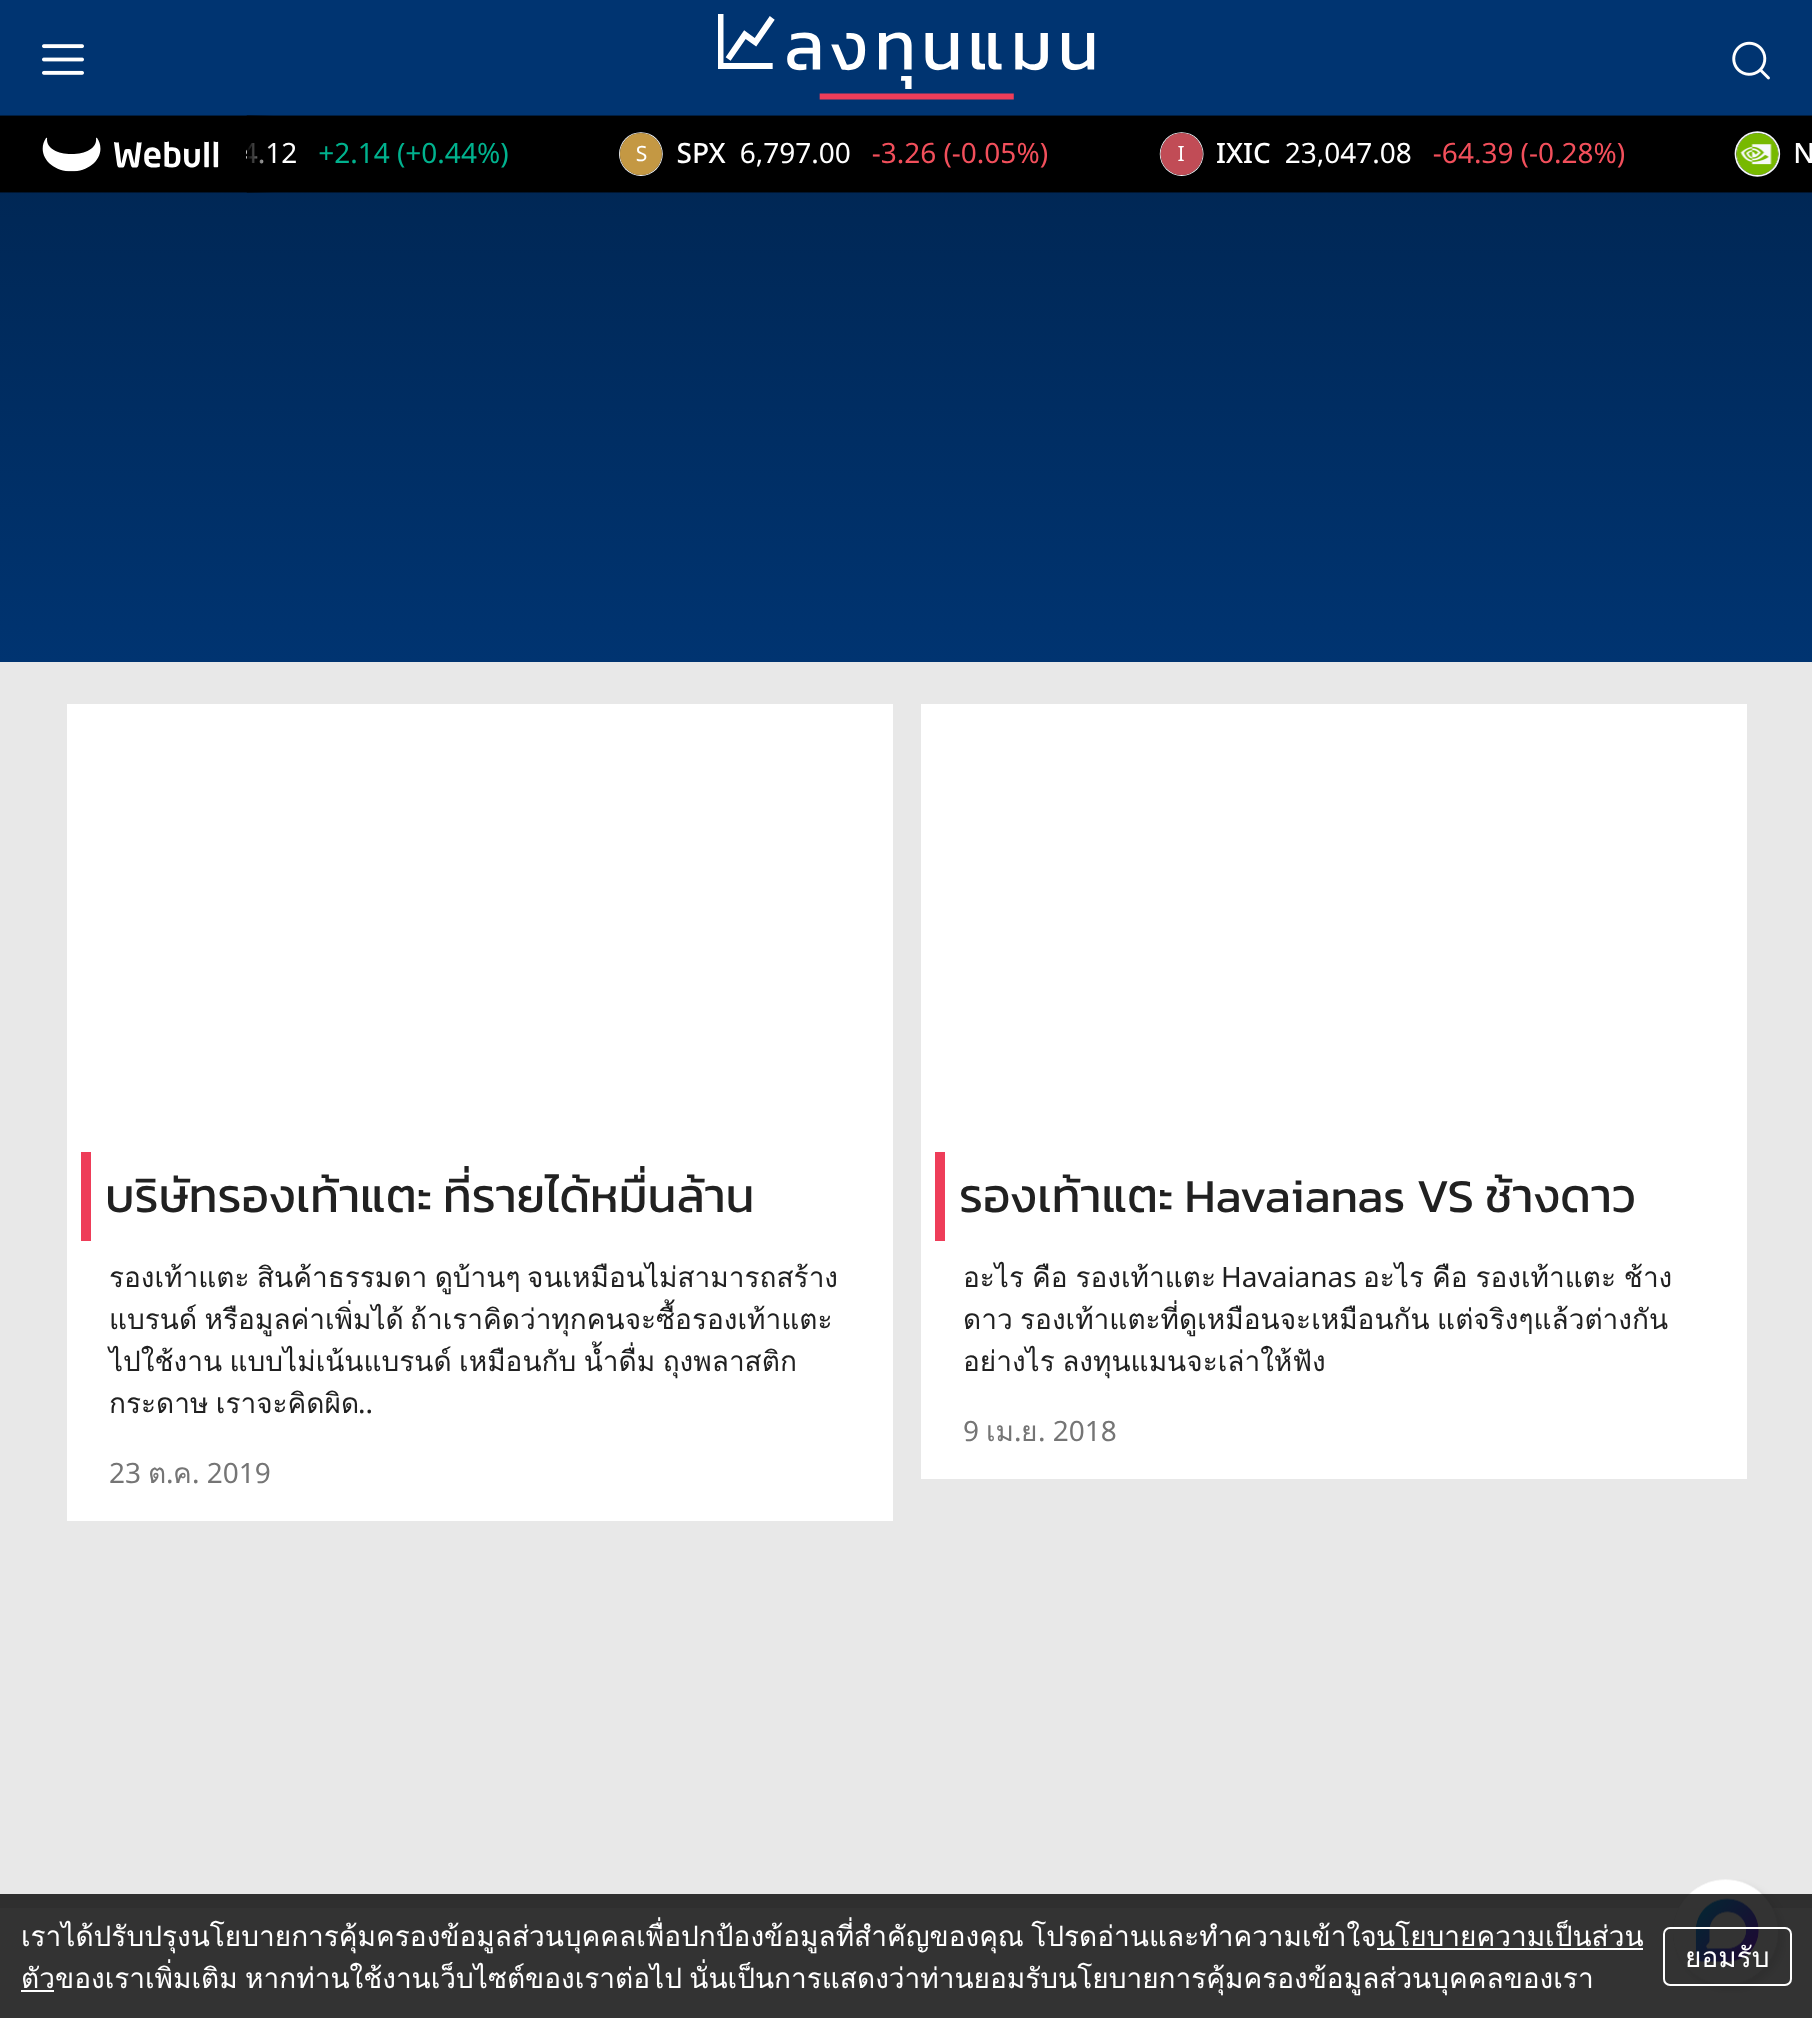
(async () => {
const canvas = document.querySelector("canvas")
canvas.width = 1812
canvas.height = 2018
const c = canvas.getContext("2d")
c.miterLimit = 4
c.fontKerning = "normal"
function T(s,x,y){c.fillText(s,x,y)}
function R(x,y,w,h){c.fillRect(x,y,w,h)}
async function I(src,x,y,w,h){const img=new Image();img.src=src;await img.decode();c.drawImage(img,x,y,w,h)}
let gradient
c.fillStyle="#e8e8e8"
R(0,0,1812,2018)
c.fillStyle="#003471"
R(0,0,1812,116)
await I("1.png",42,44,42,31)
await I("2.png",718,14,377,86)
await I("3.png",1732,41,38,39)
gradient = c.createLinearGradient(907,0,907,662)
gradient.addColorStop(0,"#00224a")
gradient.addColorStop(1,"#003471")
c.fillStyle = gradient
R(0,192,1812,470)
await I("4.png",0,115,1812,78)
c.fillStyle="#fff"
R(67,704,826,817)
c.fillStyle="#ee3d59"
R(81,1152,10,89)
c.font="47.6px Kanit"
c.fillStyle="#212121"
T("บริษัทรองเท้าแตะ ที่รายได้หมื่นล้าน",105,1212)
c.wordSpacing="-2px"
c.font="28px Loma"
T("รองเท้าแตะ สินค้าธรรมดา ดูบ้านๆ",109,1287)
c.wordSpacing="0px"
T("จนเหมือนไม่สามารถสร้าง",527,1287)
c.wordSpacing="-2px"
T("แบรนด์ หรือมูลค่าเพิ่มได้",109,1329)
c.wordSpacing="0px"
T("ถ้าเราคิดว่าทุกคนจะซื้อรองเท้าแตะ",410,1329)
c.wordSpacing="-2px"
T("ไปใช้งาน แบบไม่เน้นแบรนด์ เหมือนกับ น้ำดื่ม ถุงพลาสติก",109,1371)
T("กระดาษ เราจะคิดผิด",109,1413)
c.wordSpacing="0px"
c.font="28px Noto Sans"
T("..",358,1413)
c.fillStyle="#757575"
T("23",109,1483)
c.font="28px Loma"
T("ต",148,1483)
c.font="28px Noto Sans"
T(".",166,1483)
c.font="28px Loma"
T("ค",173,1483)
c.font="28px Noto Sans"
T(". 2019",192,1483)
c.fillStyle="#fff"
R(921,704,826,775)
c.fillStyle="#ee3d59"
R(935,1152,10,89)
c.font="47.6px Kanit"
c.fillStyle="#212121"
T("รองเท้าแตะ Havaianas VS ช้างดาว",959,1212)
c.wordSpacing="-1.5px"
c.font="28px Loma"
T("อะไร คือ รองเท้าแตะ",963,1287)
c.wordSpacing="0px"
c.font="28px Noto Sans"
T("Havaianas",1221,1287)
c.wordSpacing="-1.5px"
c.font="28px Loma"
T("อะไร คือ รองเท้าแตะ ช้าง",1363,1287)
c.wordSpacing="-2px"
T("ดาว รองเท้าแตะที่ดูเหมือนจะเหมือนกัน แต่จริงๆแล้วต่างกัน",963,1329)
T("อย่างไร ลงทุนแมนจะเล่าให้ฟัง",963,1371)
c.wordSpacing="0px"
c.font="28px Noto Sans"
c.fillStyle="#757575"
T("9",963,1441)
c.font="28px Loma"
T("เม",986,1441)
c.font="28px Noto Sans"
T(".",1014,1441)
c.font="28px Loma"
T("ย",1021,1441)
c.font="28px Noto Sans"
T(". 2018",1038,1441)
c.fillStyle="#fff"
R(0,1908,1812,110)
await I("5.png",1673,1879,113,114)
c.fillStyle="#000000cc"
R(0,1894,1812,124)
c.wordSpacing="-2px"
c.font="28px Loma"
c.fillStyle="#fff"
T("เราได้ปรับปรุงนโยบายการคุ้มครองข้อมูลส่วนบุคคลเพื่อปกป้องข้อมูลที่สำคัญของคุณ โปรดอ่านและทำความเข้าใจ",21,1946)
R(1377,1948,266,2)
c.wordSpacing="0px"
T("นโยบายความเป็นส่วน",1376,1946)
T("ตัว",21,1988)
R(21,1990,33,2)
c.wordSpacing="-2px"
T("ของเราเพิ่มเติม หากท่านใช้งานเว็บไซต์ของเราต่อไป นั่นเป็นการแสดงว่าท่านยอมรับนโยบายการคุ้มครองข้อมูลส่วนบุคคลของเรา",55,1988)
c.beginPath()
c.roundRect(1664,1928,127,57,6)
c.strokeStyle="#fff"
c.lineWidth=2
c.stroke()
c.wordSpacing="0px"
T("ยอมรับ",1685,1967)
})()
